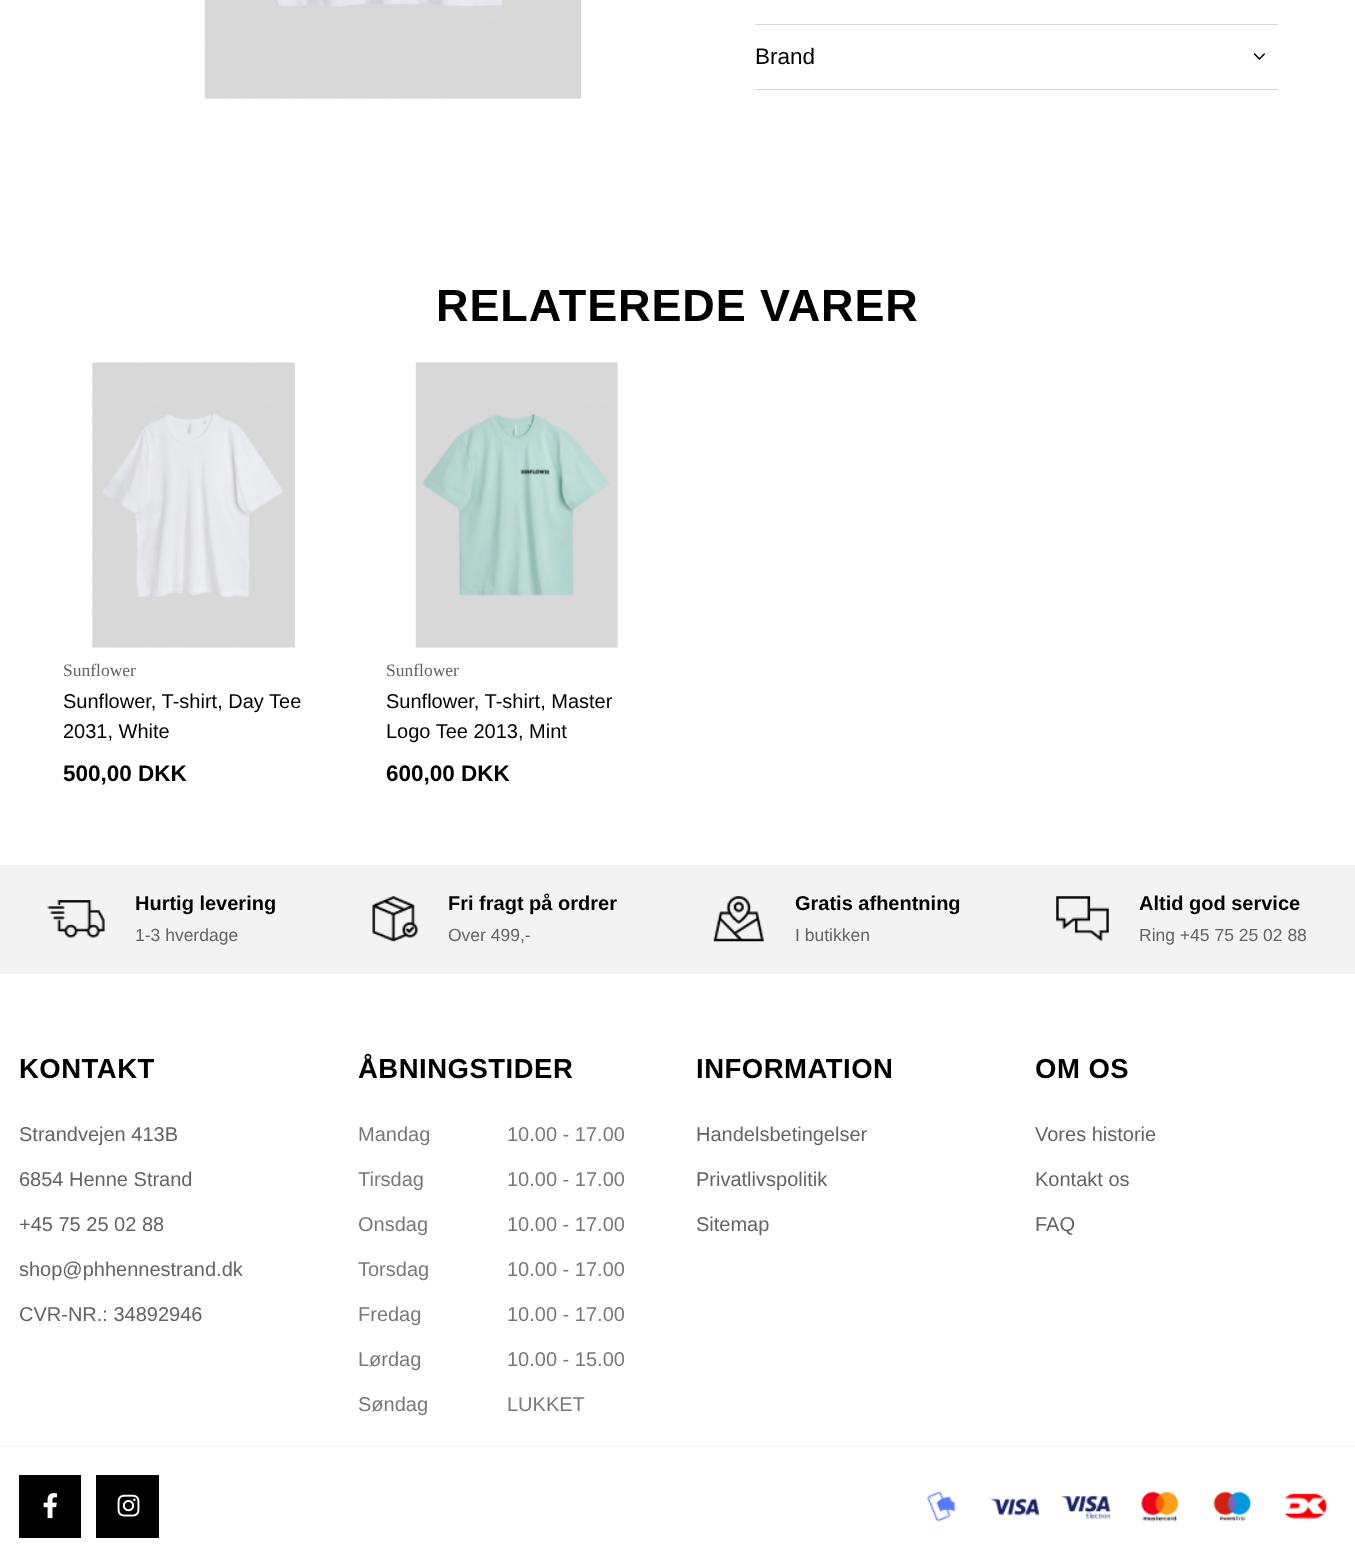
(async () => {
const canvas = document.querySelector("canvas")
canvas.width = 1355
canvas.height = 1564
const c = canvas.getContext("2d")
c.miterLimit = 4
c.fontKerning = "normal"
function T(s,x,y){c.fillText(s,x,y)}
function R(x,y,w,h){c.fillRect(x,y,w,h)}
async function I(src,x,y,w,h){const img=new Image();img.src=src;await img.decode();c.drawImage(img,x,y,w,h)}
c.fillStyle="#fff"
R(0,0,1355,1564)
await I("1.png",204,0,377,99)
c.fillStyle="#d7d7d7"
R(755,24,523,1)
R(755,89,523,1)
c.font="22.5px Liberation Sans"
c.fillStyle="#000"
T("Brand",755,64)
await I("2.png",1253,53,12,7)
c.letterSpacing="0.9px"
c.font="bold 45px Liberation Sans"
T("RELATEREDE VARER",436,321)
await I("3.png",92,362,203,286)
c.letterSpacing="0px"
c.font="17.5px Liberation Serif"
c.fillStyle="#636363"
T("Sunflower",63,676)
c.font="20px Liberation Sans"
c.fillStyle="#000"
T("Sunflower, T-shirt, Day Tee",63,708)
T("2031, White",63,738)
c.font="bold 22.5px Liberation Sans"
T("500,00 DKK",63,781)
await I("4.png",415,362,203,286)
c.font="17.5px Liberation Serif"
c.fillStyle="#636363"
T("Sunflower",386,676)
c.font="20px Liberation Sans"
c.fillStyle="#000"
T("Sunflower, T-shirt, Master",386,708)
T("Logo Tee 2013, Mint",386,738)
c.font="bold 22.5px Liberation Sans"
T("600,00 DKK",386,781)
c.fillStyle="#f3f3f3"
R(0,865,1355,109)
await I("5.png",47,900,58,38)
c.font="bold 20px Liberation Sans"
c.fillStyle="#000"
T("Hurtig levering",135,910)
c.font="17.5px Liberation Sans"
c.fillStyle="#636363"
T("1-3 hverdage",135,941)
await I("6.png",372,896,46,46)
c.font="bold 20px Liberation Sans"
c.fillStyle="#000"
T("Fri fragt på ordrer",448,910)
c.font="17.5px Liberation Sans"
c.fillStyle="#636363"
T("Over 499,-",448,941)
await I("7.png",713,896,51,46)
c.font="bold 20px Liberation Sans"
c.fillStyle="#000"
T("Gratis afhentning",795,910)
c.font="17.5px Liberation Sans"
c.fillStyle="#636363"
T("I butikken",795,941)
await I("8.png",1056,896,53,46)
c.font="bold 20px Liberation Sans"
c.fillStyle="#000"
T("Altid god service",1139,910)
c.font="17.5px Liberation Sans"
c.fillStyle="#636363"
T("Ring +45 75 25 02 88",1139,941)
c.letterSpacing="0.5px"
c.font="bold 27.5px Liberation Sans"
c.fillStyle="#000"
T("KONTAKT",19,1078)
c.letterSpacing="0px"
c.font="20px Liberation Sans"
c.fillStyle="#636363"
T("Strandvejen 413B",19,1141)
T("6854 Henne Strand",19,1186)
T("+45 75 25 02 88",19,1231)
T("shop@phhennestrand.dk",19,1276)
T("CVR-NR.: 34892946",19,1321)
c.letterSpacing="0.5px"
c.font="bold 27.5px Liberation Sans"
c.fillStyle="#000"
T("ÅBNINGSTIDER",358,1078)
c.letterSpacing="0px"
c.font="20px Liberation Sans"
c.fillStyle="#787878"
T("Mandag",358,1141)
T("10.00 - 17.00",507,1141)
T("Tirsdag",358,1186)
T("10.00 - 17.00",507,1186)
T("Onsdag",358,1231)
T("10.00 - 17.00",507,1231)
T("Torsdag",358,1276)
T("10.00 - 17.00",507,1276)
T("Fredag",358,1321)
T("10.00 - 17.00",507,1321)
T("Lørdag",358,1366)
T("10.00 - 15.00",507,1366)
T("Søndag",358,1411)
T("LUKKET",507,1411)
c.letterSpacing="0.5px"
c.font="bold 27.5px Liberation Sans"
c.fillStyle="#000"
T("INFORMATION",696,1078)
c.letterSpacing="0px"
c.font="20px Liberation Sans"
c.fillStyle="#636363"
T("Handelsbetingelser",696,1141)
T("Privatlivspolitik",696,1186)
T("Sitemap",696,1231)
c.letterSpacing="0.5px"
c.font="bold 27.5px Liberation Sans"
c.fillStyle="#000"
T("OM OS",1035,1078)
c.letterSpacing="0px"
c.font="20px Liberation Sans"
c.fillStyle="#636363"
T("Vores historie",1035,1141)
T("Kontakt os",1035,1186)
T("FAQ",1035,1231)
c.fillStyle="#f3f3f3"
R(0,1446,1355,1)
c.fillStyle="#000"
R(19,1475,62,63)
await I("9.png",43,1493,14,26)
R(96,1475,63,63)
await I("10.png",117,1494,23,23)
await I("11.png",927,1491,400,31)
})()
